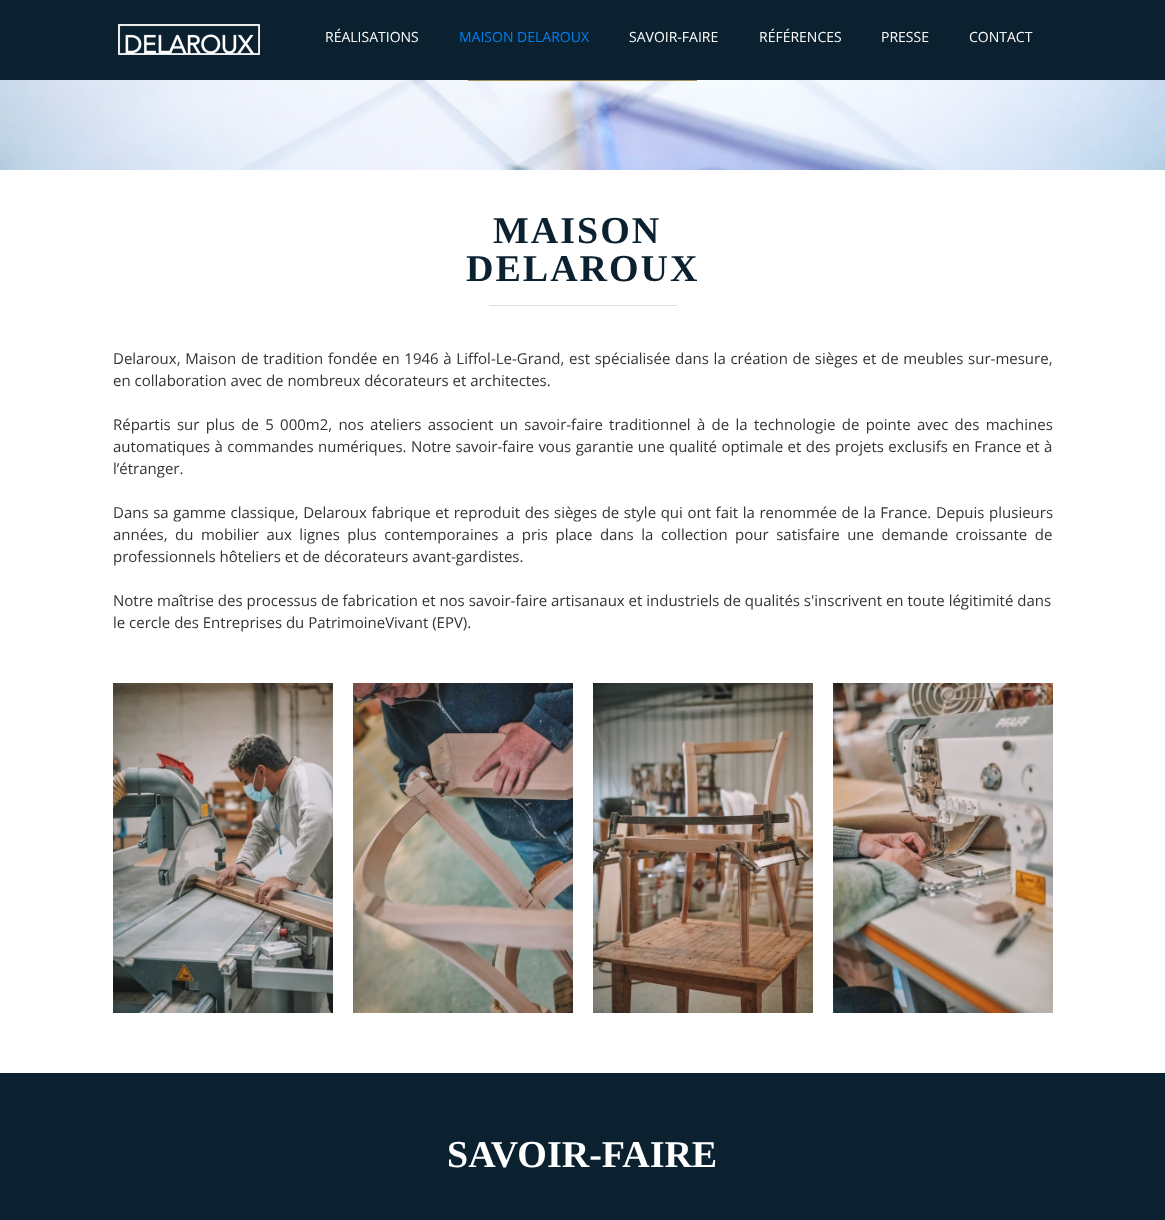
(async () => {
const canvas = document.querySelector("canvas")
canvas.width = 1165
canvas.height = 1220
const c = canvas.getContext("2d")
c.miterLimit = 4
c.fontKerning = "normal"
function T(s,x,y){c.fillText(s,x,y)}
function R(x,y,w,h){c.fillRect(x,y,w,h)}
async function I(src,x,y,w,h){const img=new Image();img.src=src;await img.decode();c.drawImage(img,x,y,w,h)}
c.fillStyle="#fff"
R(0,0,1165,1220)
c.fillStyle="#0b2130"
R(0,0,1165,80)
await I("1.png",118,24,142,31)
c.font="14px Open Sans"
c.fillStyle="#fff"
T("RÉALISATIONS",325,42)
c.fillStyle="#0082f3"
T("MAISON DELAROUX",459,42)
c.fillStyle="#fff"
T("SAVOIR-FAIRE",629,42)
T("RÉFÉRENCES",759,42)
T("PRESSE",881,42)
T("CONTACT",969,42)
await I("2.png",0,80,1165,90)
c.fillStyle="#8a723282"
R(468,80,229,1)
R(468,80,229,1)
c.letterSpacing="2px"
c.font="bold 38px Liberation Serif"
c.fillStyle="#0b2130"
T("MAISON",493,243)
T("DELAROUX",466,281)
c.fillStyle="#dedede"
R(489,305,188,1)
c.letterSpacing="0px"
c.wordSpacing="0.8px"
c.font="15px Open Sans"
c.fillStyle="#333"
T("Delaroux, Maison de tradition fondée en 1946 à Liffol-Le-Grand, est spécialisée dans la création de sièges et de meubles sur-mesure,",113,364)
c.wordSpacing="0px"
T("en collaboration avec de nombreux décorateurs et architectes.",113,386)
c.wordSpacing="2.4px"
T("Répartis sur plus de 5 000m2, nos ateliers associent un savoir-faire traditionnel à de la technologie de pointe avec des machines",113,430)
c.wordSpacing="0.5px"
T("automatiques à commandes numériques. Notre savoir-faire vous garantie une qualité optimale et des projets exclusifs en France et à",113,452)
c.wordSpacing="0px"
T("l’étranger.",113,474)
c.wordSpacing="0.7px"
T("Dans sa gamme classique, Delaroux fabrique et reproduit des sièges de style qui ont fait la renommée de la France. Depuis plusieurs",113,518)
c.wordSpacing="3.6px"
T("années, du mobilier aux lignes plus contemporaines a pris place dans la collection pour satisfaire une demande croissante de",113,540)
c.wordSpacing="0px"
T("professionnels hôteliers et de décorateurs avant-gardistes.",113,562)
T("Notre maîtrise des processus de fabrication et nos savoir-faire artisanaux et industriels de qualités s'inscrivent en toute légitimité dans",113,606)
T("le cercle des Entreprises du PatrimoineVivant (EPV).",113,628)
await I("3.png",113,683,220,330)
await I("4.png",353,683,220,330)
await I("5.png",593,683,220,330)
await I("6.png",833,683,220,330)
c.fillStyle="#0b2130"
R(0,1073,1165,147)
c.font="bold 38px Liberation Serif"
c.fillStyle="#fff"
T("SAVOIR-FAIRE",447,1167)
})()
